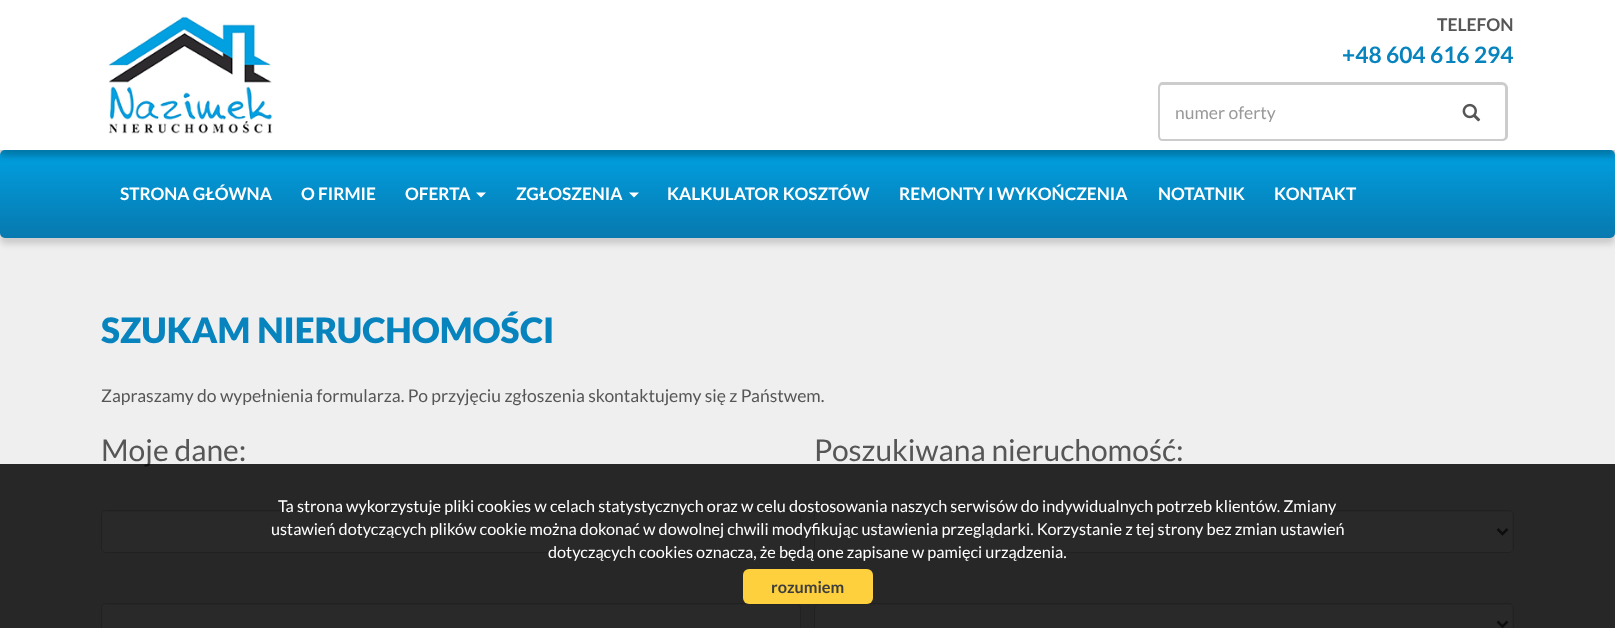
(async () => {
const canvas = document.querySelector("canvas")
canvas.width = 1615
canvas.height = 628
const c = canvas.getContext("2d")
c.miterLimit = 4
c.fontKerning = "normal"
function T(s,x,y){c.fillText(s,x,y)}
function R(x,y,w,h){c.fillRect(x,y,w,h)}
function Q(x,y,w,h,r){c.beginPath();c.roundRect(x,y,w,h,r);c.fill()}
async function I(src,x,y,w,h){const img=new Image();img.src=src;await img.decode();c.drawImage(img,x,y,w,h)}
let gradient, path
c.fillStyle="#efeff0"
R(0,0,1615,628)
c.fillStyle="#00000026"
c.filter="blur(3px)"
c.beginPath()
c.roundRect(0,156,1615,88,5)
c.fill()
c.filter="none"
gradient = c.createLinearGradient(808,150,808,238)
gradient.addColorStop(0,"#01a0e1")
gradient.addColorStop(1,"#0779af")
c.fillStyle = gradient
Q(0,150,1615,88,5)
c.fillStyle="#00000040"
c.filter="blur(3px)"
c.beginPath()
c.rect(0,6,1615,150)
c.fill()
c.filter="none"
c.fillStyle="#fff"
R(0,0,1615,150)
await I("1.png",108,16,165,118)
c.font="bold 17.5px Lato"
c.fillStyle="#565656"
T("TELEFON",1437,31)
c.font="bold 22.75px Lato"
c.fillStyle="#0783be"
T("+48 604 616 294",1342,63)
c.fillStyle="#ccc"
path = new Path2D("M1438 82h64c3 0 6 3 6 6v48c0 3-3 5-6 5h-64zm0 3h64c2 0 3 1 3 3v48c0 2-1 3-3 3h-64z")
c.fill(path,"evenodd")
c.fillStyle="#fff"
c.beginPath()
c.roundRect(1158,83,292,58,[5,0,0,5])
c.fill()
c.fillStyle="#ccc"
path = new Path2D("M1162 82h288v59h-288c-2 0-4-2-4-5v-48c0-3 2-6 4-6zm0 3h288v54h-288c-1 0-2-1-2-3v-48c0-2 1-3 2-3z")
c.fill(path,"evenodd")
c.font="17.5px Lato"
c.fillStyle="#999"
T("numer oferty",1175,119)
await I("2.png",1462,103,19,19)
c.font="bold 17.25px Lato"
c.fillStyle="#fff"
T("STRONA GŁÓWNA",120,200)
T("O FIRMIE",301,200)
T("OFERTA",405,200)
path = new Path2D("M476 192.5h10l-5 5z")
c.fill(path)
T("ZGŁOSZENIA",516,200)
path = new Path2D("M629 192.5h10l-5 5z")
c.fill(path)
T("KALKULATOR KOSZTÓW",667,200)
T("REMONTY I WYKOŃCZENIA",899,200)
T("NOTATNIK",1158,200)
T("KONTAKT",1274,200)
c.font="900 35px Lato"
c.fillStyle="#0783be"
T("SZUKAM NIERUCHOMOŚCI",101,343)
c.font="17.5px Lato"
c.fillStyle="#565656"
T("Zapraszamy do wypełnienia formularza. Po przyjęciu zgłoszenia skontaktujemy się z Państwem.",101,402)
c.font="30px Lato"
T("Moje dane:",101,461)
c.fillStyle="#fff"
Q(101,510,700,43,5)
c.fillStyle="#ececec"
path = new Path2D("M106 512h690c2 0 4 2 4 4v-1c0-2-2-4-4-4h-689c-1 0-3 1-3 2z")
c.fill(path)
c.beginPath()
c.roundRect(101.5,510.5,699,42,4.5)
c.strokeStyle="#ccc"
c.stroke()
c.fillStyle="#fff"
Q(101,603,700,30,5)
c.fillStyle="#ececec"
path = new Path2D("M106 605h690c2 0 4 2 4 4v-1c0-2-2-4-4-4h-689c-1 0-3 1-3 2z")
c.fill(path)
c.beginPath()
c.roundRect(101.5,603.5,699,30,4.5)
c.stroke()
c.fillStyle="#565656"
T("Poszukiwana nieruchomość:",814,461)
c.fillStyle="#fff"
Q(814,510,700,43,5)
c.fillStyle="#ececec"
path = new Path2D("M819 512h690c2 0 3 2 3 4v34c1-1 1-2 1-3v-32c0-2-2-4-4-4h-690c-2 0-4 2-4 4v1c0-2 2-4 4-4z")
c.fill(path)
c.beginPath()
c.roundRect(814.5,510.5,699,42,4.5)
c.stroke()
path = new Path2D("M1497.5 529l5 5l5-5")
c.strokeStyle="#555"
c.lineWidth=2.5
c.stroke(path)
c.fillStyle="#fff"
Q(814,603,700,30,5)
c.fillStyle="#ececec"
path = new Path2D("M819 605h690c2 0 3 2 3 4v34c0-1 1-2 1-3v-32c0-2-2-4-4-4h-690c-2 0-4 2-4 4v1c0-2 2-4 4-4z")
c.fill(path)
c.beginPath()
c.roundRect(814.5,603.5,699,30,4.5)
c.strokeStyle="#ccc"
c.lineWidth=1
c.stroke()
path = new Path2D("M1497.5 621.5l5 5l5-5")
c.strokeStyle="#555"
c.lineWidth=2.5
c.stroke(path)
c.fillStyle="#000000d6"
R(0,464,1615,164)
c.font="16.25px Lato"
c.fillStyle="#fff"
T("Ta strona wykorzystuje pliki cookies w celach statystycznych oraz w celu dostosowania naszych serwisów do indywidualnych potrzeb klientów. Zmiany",278,512)
T("ustawień dotyczących plików cookie można dokonać w dowolnej chwili modyfikując ustawienia przeglądarki. Korzystanie z tej strony bez zmian ustawień",271,535)
T("dotyczących cookies oznacza, że będą one zapisane w pamięci urządzenia.",548,558)
c.fillStyle="#fed03d"
Q(743,569,130,35,6)
c.font="bold 16.25px Lato"
c.fillStyle="#3d3d3d"
T("rozumiem",771,593)
})()
